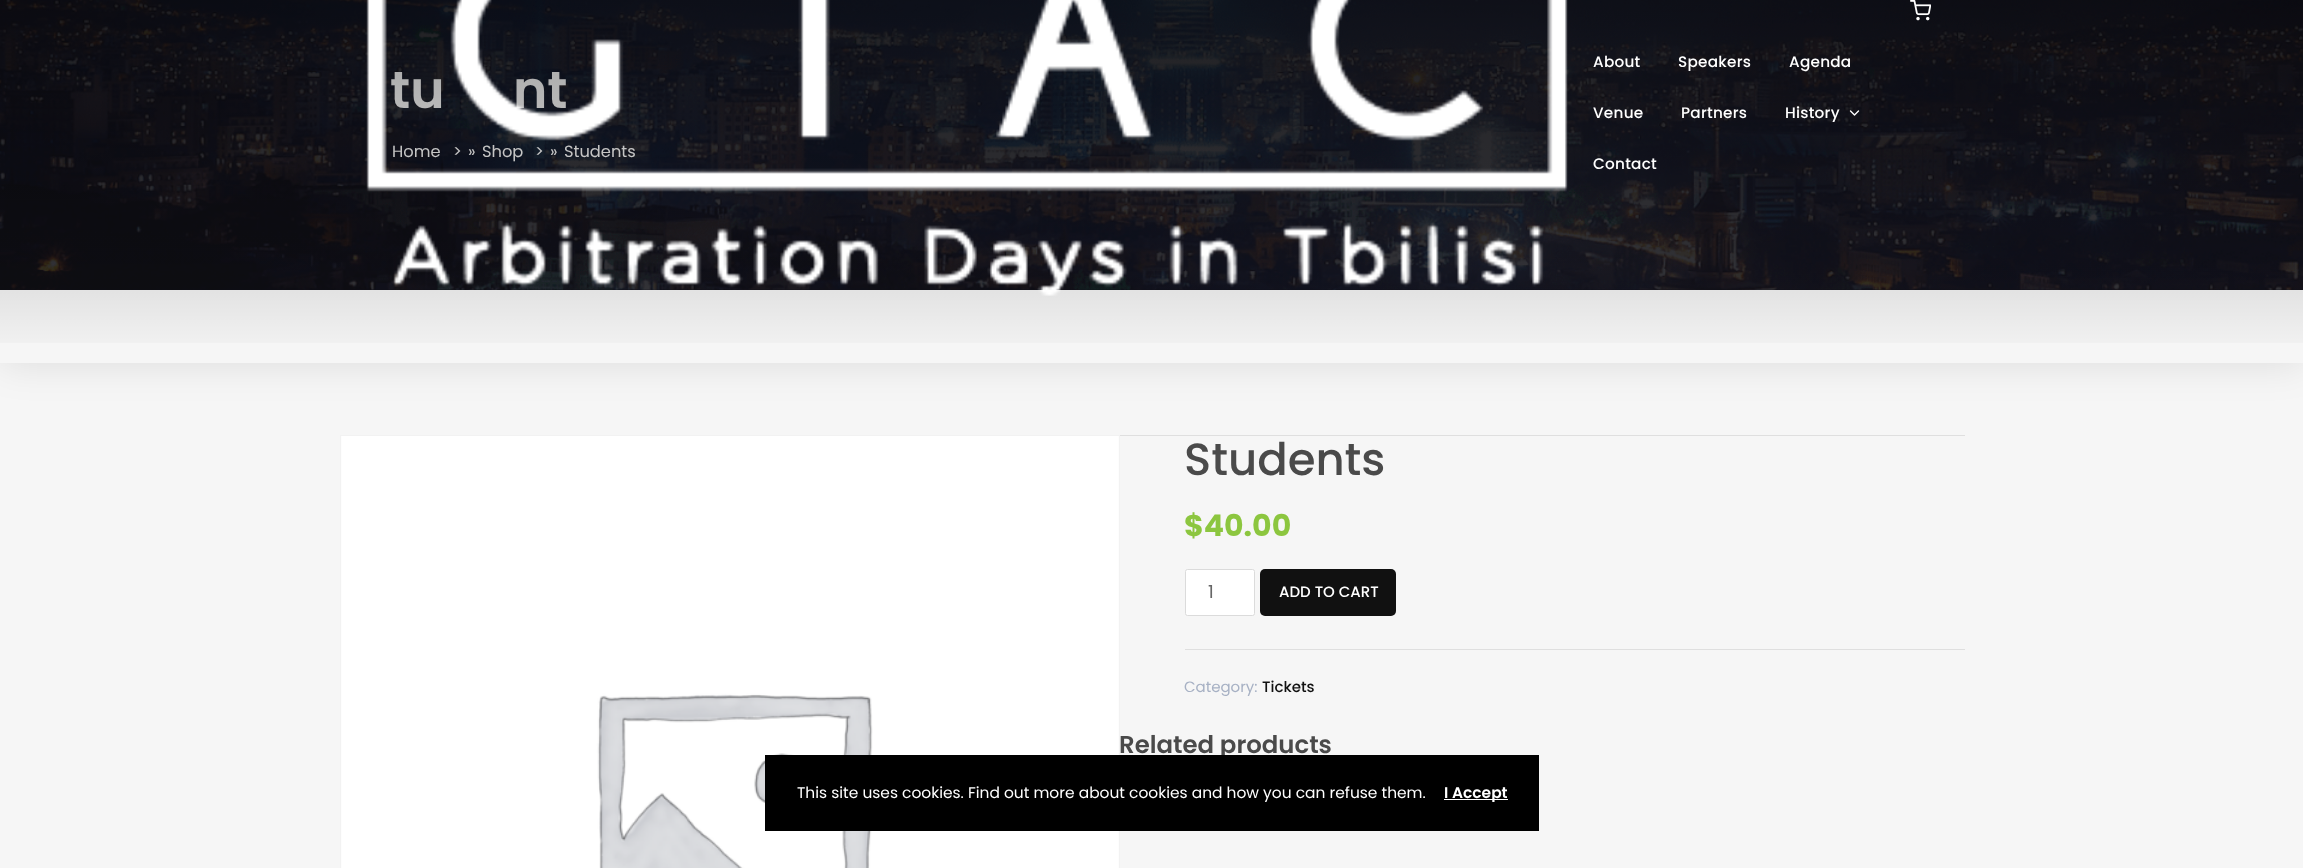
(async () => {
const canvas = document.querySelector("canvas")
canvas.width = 2303
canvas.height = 868
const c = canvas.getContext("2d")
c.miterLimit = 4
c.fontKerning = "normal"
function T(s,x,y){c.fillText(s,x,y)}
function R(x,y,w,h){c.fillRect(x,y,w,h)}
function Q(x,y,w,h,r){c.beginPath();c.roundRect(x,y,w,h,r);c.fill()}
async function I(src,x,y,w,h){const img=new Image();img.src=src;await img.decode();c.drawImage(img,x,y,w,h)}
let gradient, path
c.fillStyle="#f6f6f6"
R(0,0,2303,868)
c.fillStyle="#121219"
R(0,0,2303,290)
await I("1.png",0,0,2303,290)
c.font="600 52px Poppins"
c.fillStyle="#fff"
T("tu",390,108)
T("nt",513,108)
c.font="16.25px Poppins"
T("Home",392,157)
T(">",453,157)
T("»",468,157)
T("Shop",482,157)
T(">",535,157)
T("»",550,157)
T("Students",564,157)
c.strokeStyle="#f2f2f2"
c.strokeRect(340.5,435.5,779,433)
await I("2.png",341,436,778,432)
c.font="500 45px Poppins"
c.fillStyle="#4a4a4a"
T("Students",1184,475)
c.font="bold 30px Poppins"
c.fillStyle="#8cc63f"
T("$40.00",1184,536)
c.fillStyle="#fff"
c.beginPath()
c.roundRect(1185.5,569.5,69,46,2)
c.fill()
c.strokeStyle="#dbdbdb"
c.stroke()
c.font="18px Poppins"
c.fillStyle="#666"
T("1",1208,598)
c.fillStyle="#111"
Q(1260,569,136,47,5)
c.font="500 15px Poppins"
c.fillStyle="#fff"
T("ADD TO CART",1279,597)
c.fillStyle="#dfdfdf"
R(1185,649,780,1)
c.font="15px Poppins"
c.fillStyle="#a7b1c4"
T("Category:",1184,692)
c.font="500 15px Poppins"
c.fillStyle="#111"
T("Tickets",1262,692)
c.fillStyle="#dfdfdf"
R(1120,435,845,1)
c.font="600 24.4px Poppins"
c.fillStyle="#4a4a4a"
T("Related products",1119,753)
c.save()
path = new Path2D("M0 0h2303v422h-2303zm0-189h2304v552h-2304z")
c.clip(path,"evenodd")
c.fillStyle="#0000001a"
c.filter="blur(19px)"
c.beginPath()
c.rect(0,-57,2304,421)
c.fill()
c.filter="none"
c.restore()
gradient = c.createLinearGradient(1152,-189,1152,363)
gradient.addColorStop(0,"#00000099")
gradient.addColorStop(1,"#00000000")
c.fillStyle = gradient
R(0,0,2303,343)
await I("3.png",366,0,1202,296)
await I("4.png",1910,0,21,21)
c.letterSpacing="0.25px"
c.font="500 15.25px Poppins"
c.fillStyle="#fff"
T("About",1593,67)
T("Speakers",1678,67)
T("Agenda",1789,67)
T("Venue",1593,118)
T("Partners",1681,118)
T("History",1785,118)
path = new Path2D("M1850.5 111l4 4l4-4")
c.strokeStyle="#fff"
c.lineWidth=1.4
c.lineCap="round"
c.lineJoin="round"
c.stroke(path)
T("Contact",1593,169)
c.fillStyle="#000"
R(765,755,774,76)
c.letterSpacing="0px"
c.font="15.45px Poppins"
c.fillStyle="#fff"
T("This site uses cookies. Find out more about cookies and how you can refuse them.",797,798)
R(1444,799,64,1)
c.font="600 15.45px Poppins"
T("I Accept",1444,798)
})()
